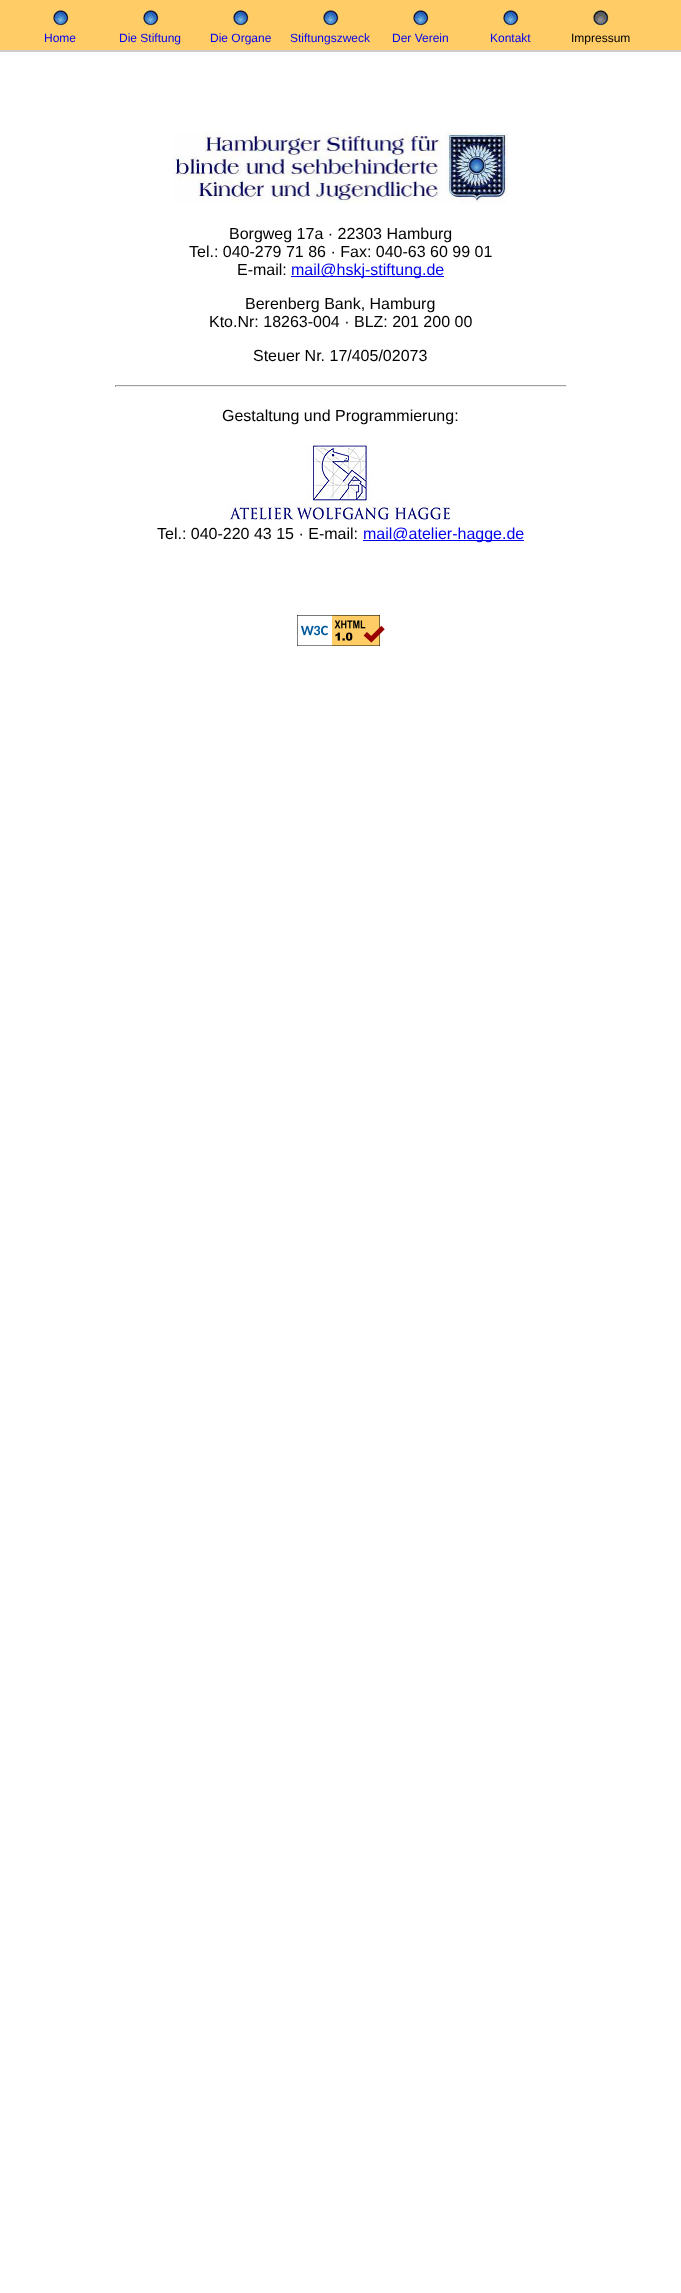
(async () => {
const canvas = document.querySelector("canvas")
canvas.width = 681
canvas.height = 2293
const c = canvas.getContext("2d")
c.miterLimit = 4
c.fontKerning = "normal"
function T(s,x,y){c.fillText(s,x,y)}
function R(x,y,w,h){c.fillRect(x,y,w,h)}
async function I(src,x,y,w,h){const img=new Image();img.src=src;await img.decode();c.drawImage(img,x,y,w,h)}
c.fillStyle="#fff"
R(0,0,681,2293)
c.fillStyle="#fc6"
R(0,0,681,50)
c.fillStyle="#ccc"
R(0,50,681,2)
await I("1.png",53,10,16,16)
c.font="12px Liberation Sans"
c.fillStyle="#00e"
T("Home",44,42)
await I("1.png",143,10,16,16)
T("Die Stiftung",119,42)
await I("1.png",233,10,16,16)
T("Die Organe",210,42)
await I("1.png",323,10,16,16)
T("Stiftungszweck",290,42)
await I("1.png",413,10,16,16)
T("Der Verein",392,42)
await I("1.png",503,10,16,16)
T("Kontakt",490,42)
await I("2.png",593,10,16,16)
c.fillStyle="#000"
T("Impressum",571,42)
await I("3.png",173,132,335,71)
c.font="16px Liberation Sans"
T("Borgweg 17a · 22303 Hamburg",229,239)
T("Tel.: 040-279 71 86 · Fax: 040-63 60 99 01",189,257)
T("E-mail:",237,275)
c.fillStyle="#00e"
R(291,276,153,1)
T("mail@hskj-stiftung.de",291,275)
c.fillStyle="#000"
T("Berenberg Bank, Hamburg",245,309)
T("Kto.Nr: 18263-004 · BLZ: 201 200 00",209,327)
T("Steuer Nr. 17/405/02073",253,361)
c.fillStyle="#9f9f9f"
R(115,385,452,1)
c.fillStyle="#eee"
R(566,385,1,2)
R(115,386,452,1)
c.fillStyle="#9f9f9f"
R(115,385,1,2)
c.fillStyle="#000"
T("Gestaltung und Programmierung:",222,421)
await I("4.png",227,445,224,76)
T("Tel.: 040-220 43 15 · E-mail:",157,539)
c.fillStyle="#00e"
R(363,540,161,1)
T("mail@atelier-hagge.de",363,539)
await I("5.png",297,615,88,31)
})()
